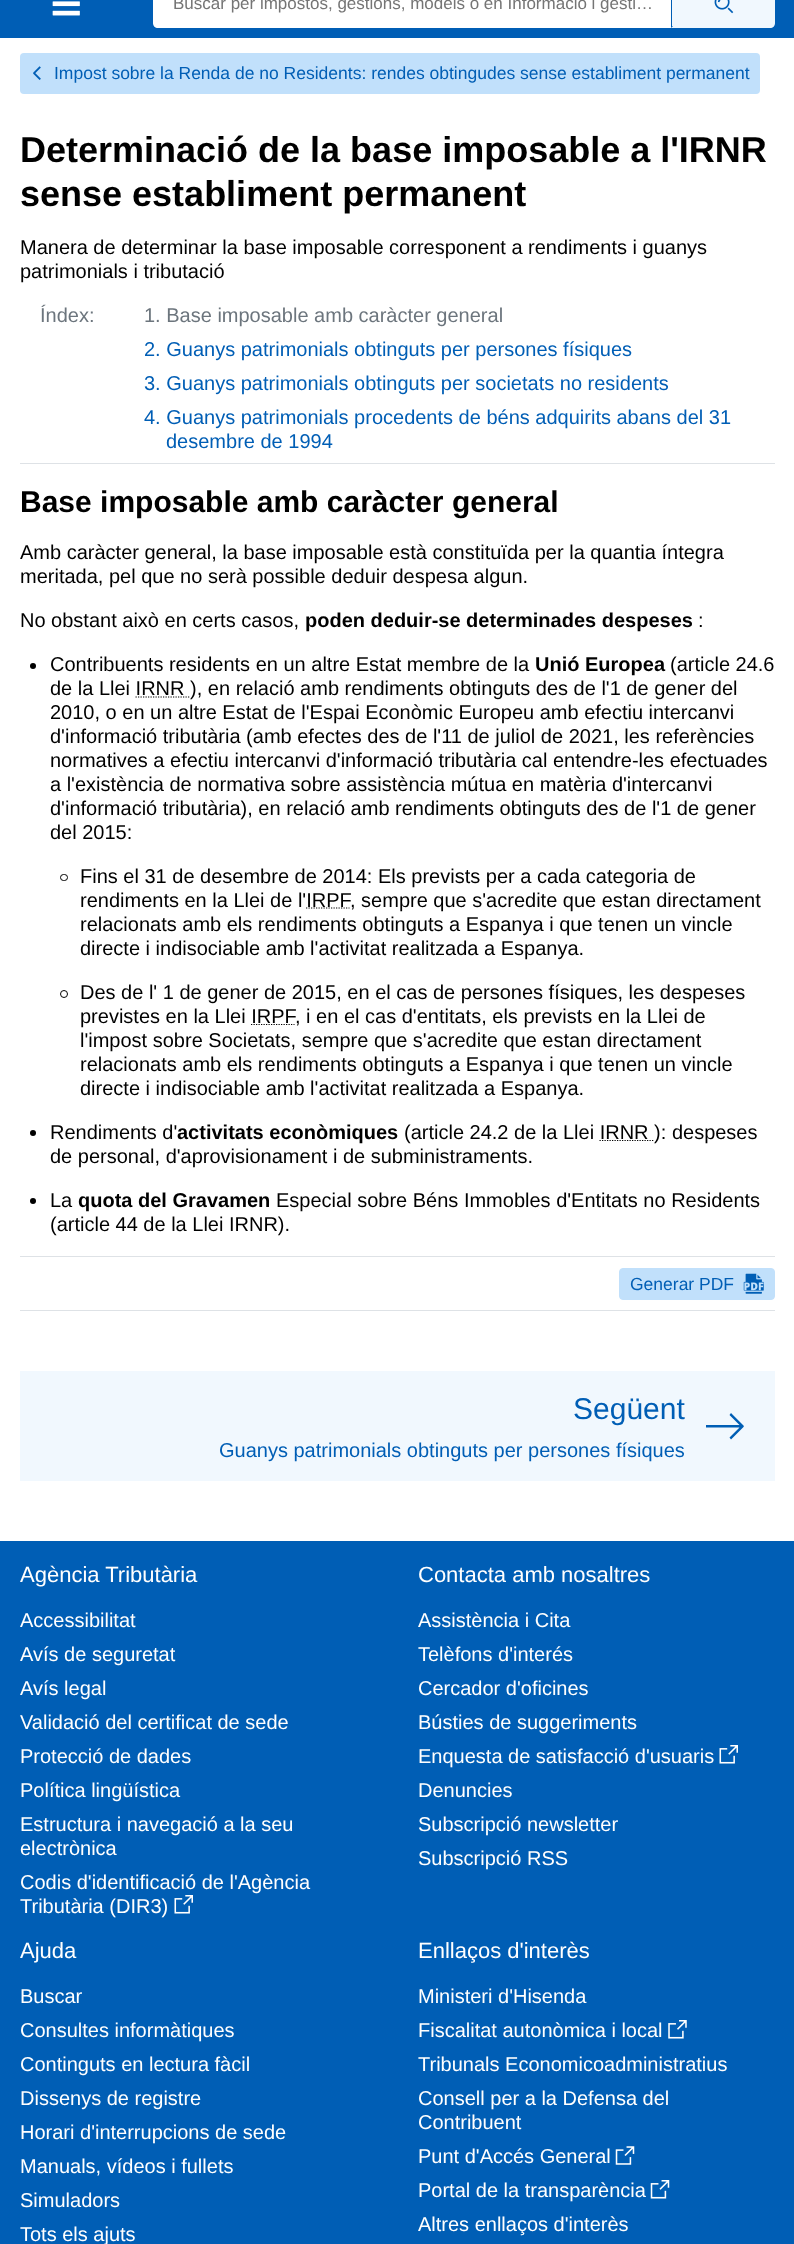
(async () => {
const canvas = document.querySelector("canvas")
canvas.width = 794
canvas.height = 2244
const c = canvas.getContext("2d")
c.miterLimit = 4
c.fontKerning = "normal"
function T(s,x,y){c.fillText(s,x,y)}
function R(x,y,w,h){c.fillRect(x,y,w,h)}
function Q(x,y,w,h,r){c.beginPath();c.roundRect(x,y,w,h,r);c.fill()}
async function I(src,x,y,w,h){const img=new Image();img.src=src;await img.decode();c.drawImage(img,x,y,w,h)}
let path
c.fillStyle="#fff"
R(0,0,794,2244)
c.fillStyle="#005eb5"
R(0,0,794,38)
await I("1.png",52,1,28,15)
c.fillStyle="#fff"
path = new Path2D("M158-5h515v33h-515c-3 0-5-2-5-5v-23c0-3 2-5 5-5z")
c.fill(path)
c.font="17px Liberation Sans"
c.fillStyle="#757575"
T("Buscar per impostos, gestions, models o en Informació i gesti…",173,9)
c.fillStyle="#f1f8fe"
path = new Path2D("M671-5h99c3 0 5 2 5 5v23c0 3-2 5-5 5h-99z")
c.fill(path)
c.fillStyle="#005eb5"
path = new Path2D("M671 28l2-2h-1v-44l-1-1z")
c.fill(path)
await I("2.png",714,0,20,14)
c.fillStyle="#c1e0fb"
Q(20,53,740,41,4)
await I("3.png",33,66,8,14)
c.font="17.5px Liberation Sans"
c.fillStyle="#005eb5"
T("Impost sobre la Renda de no Residents: rendes obtingudes sense establiment permanent",54,79)
c.font="bold 36px Liberation Sans"
c.fillStyle="#000"
T("Determinació de la base imposable a l'IRNR",20,162)
T("sense establiment permanent",20,206)
c.font="20px Liberation Sans"
T("Manera de determinar la base imposable corresponent a rendiments i guanys",20,254)
T("patrimonials i tributació",20,278)
c.fillStyle="#dee2e6"
R(20,463,755,1)
c.fillStyle="#6c757d"
T("Índex:",40,322)
T("1. Base imposable amb caràcter general",144,322)
c.fillStyle="#005eb5"
T("2. Guanys patrimonials obtinguts per persones físiques",144,356)
T("3. Guanys patrimonials obtinguts per societats no residents",144,390)
T("4. Guanys patrimonials procedents de béns adquirits abans del 31",144,424)
T("desembre de 1994",166,448)
c.font="bold 30px Liberation Sans"
c.fillStyle="#000"
T("Base imposable amb caràcter general",20,512)
c.font="20px Liberation Sans"
T("Amb caràcter general, la base imposable està constituïda per la quantia íntegra",20,559)
T("meritada, pel que no serà possible deduir despesa algun.",20,583)
T("No obstant això en certs casos,",20,627)
c.font="bold 20px Liberation Sans"
T("poden deduir-se determinades despeses",305,627)
c.font="20px Liberation Sans"
T(":",698,627)
c.beginPath()
c.arc(33,666,3,0,7)
c.fill()
T("Contribuents residents en un altre Estat membre de la",50,671)
c.font="bold 20px Liberation Sans"
T("Unió Europea",535,671)
c.font="20px Liberation Sans"
T("(article 24.6",670,671)
T("de la Llei IRNR ), en relació amb rendiments obtinguts des de l'1 de gener del",50,695)
path = new Path2D("M135.5 697h54.5")
c.strokeStyle="#000"
c.lineWidth=1.2
c.setLineDash([1.25,1.25])
c.stroke(path)
T("2010, o en un altre Estat de l'Espai Econòmic Europeu amb efectiu intercanvi",50,719)
T("d'informació tributària (amb efectes des de l'11 de juliol de 2021, les referències",50,743)
T("normatives a efectiu intercanvi d'informació tributària cal entendre-les efectuades",50,767)
T("a l'existència de normativa sobre assistència mútua en matèria d'intercanvi",50,791)
T("d'informació tributària), en relació amb rendiments obtinguts des de l'1 de gener",50,815)
T("del 2015:",50,839)
c.beginPath()
c.roundRect(60.5,874.5,7,6,3)
c.lineWidth=1
c.setLineDash([])
c.stroke()
T("Fins el 31 de desembre de 2014: Els prevists per a cada categoria de",80,883)
T("rendiments en la Llei de l'IRPF",80,907)
T(", sempre que s'acredite que estan directament",350,907)
path = new Path2D("M306 908h43.5")
c.lineWidth=1.2
c.setLineDash([1.25,1.25])
c.stroke(path)
T("relacionats amb els rendiments obtinguts a Espanya i que tenen un vincle",80,931)
T("directe i indisociable amb l'activitat realitzada a Espanya.",80,955)
c.beginPath()
c.arc(64,994,3.5,0,7)
c.lineWidth=1
c.setLineDash([])
c.stroke()
T("Des de l' 1 de gener de 2015, en el cas de persones físiques, les despeses",80,999)
T("previstes en la Llei IRPF",80,1023)
T(", i en el cas d'entitats, els prevists en la Llei de",295,1023)
path = new Path2D("M251 1024.5h43.5")
c.lineWidth=1.2
c.setLineDash([1.25,1.25])
c.stroke(path)
T("l'impost sobre Societats, sempre que s'acredite que estan directament",80,1047)
T("relacionats amb els rendiments obtinguts a Espanya i que tenen un vincle",80,1071)
T("directe i indisociable amb l'activitat realitzada a Espanya.",80,1095)
c.beginPath()
c.arc(33,1133,3,0,7)
c.fill()
T("Rendiments d'",50,1139)
c.font="bold 20px Liberation Sans"
T("activitats econòmiques",177,1139)
c.font="20px Liberation Sans"
T("(article 24.2 de la Llei IRNR ): despeses",404,1139)
path = new Path2D("M599.5 1140.5h54.5")
c.stroke(path)
T("de personal, d'aprovisionament i de subministraments.",50,1163)
c.beginPath()
c.arc(33,1201,3,0,7)
c.fill()
T("La",50,1207)
c.font="bold 20px Liberation Sans"
T("quota del Gravamen",78,1207)
c.font="20px Liberation Sans"
T("Especial sobre Béns Immobles d'Entitats no Residents",276,1207)
T("(article 44 de la Llei IRNR).",50,1231)
c.fillStyle="#dee2e6"
R(20,1256,755,1)
R(20,1310,755,1)
c.fillStyle="#c1e0fb"
c.beginPath()
c.roundRect(619.5,1268.5,155,31,3.5)
c.fill()
c.strokeStyle="#c1e0fb"
c.lineWidth=1
c.setLineDash([])
c.stroke()
c.font="17.5px Liberation Sans"
c.fillStyle="#005eb5"
T("Generar PDF",630,1290)
await I("4.png",743,1273,21,21)
c.fillStyle="#f1f8fe"
R(20,1371,755,110)
c.font="30px Liberation Sans"
c.fillStyle="#005eb5"
T("Següent",573,1419)
c.font="20px Liberation Sans"
T("Guanys patrimonials obtinguts per persones físiques",219,1457)
path = new Path2D("M731 1413l-1.5 2l10 10h-33.5v2.5h33.5l-10 10l1.5 2l12.5-12.5c.5-.5 .5-1 0-1.5z")
c.fill(path)
R(0,1541,794,703)
c.font="22px Liberation Sans"
c.fillStyle="#fff"
T("Agència Tributària",20,1582)
c.font="20px Liberation Sans"
T("Accessibilitat",20,1627)
T("Avís de seguretat",20,1661)
T("Avís legal",20,1695)
T("Validació del certificat de sede",20,1729)
T("Protecció de dades",20,1763)
T("Política lingüística",20,1797)
T("Estructura i navegació a la seu",20,1831)
T("electrònica",20,1855)
T("Codis d'identificació de l'Agència",20,1889)
T("Tributària (DIR3)",20,1913)
await I("5.png",174,1895,19,19)
c.font="22px Liberation Sans"
T("Contacta amb nosaltres",418,1582)
c.font="20px Liberation Sans"
T("Assistència i Cita",418,1627)
T("Telèfons d'interés",418,1661)
T("Cercador d'oficines",418,1695)
T("Bústies de suggeriments",418,1729)
T("Enquesta de satisfacció d'usuaris",418,1763)
await I("5.png",719,1745,19,19)
T("Denuncies",418,1797)
T("Subscripció newsletter",418,1831)
T("Subscripció RSS",418,1865)
c.font="22px Liberation Sans"
T("Ajuda",20,1958)
c.font="20px Liberation Sans"
T("Buscar",20,2003)
T("Consultes informàtiques",20,2037)
T("Continguts en lectura fàcil",20,2071)
T("Dissenys de registre",20,2105)
T("Horari d'interrupcions de sede",20,2139)
T("Manuals, vídeos i fullets",20,2173)
T("Simuladors",20,2207)
T("Tots els ajuts",20,2241)
c.font="22px Liberation Sans"
T("Enllaços d'interès",418,1958)
c.font="20px Liberation Sans"
T("Ministeri d'Hisenda",418,2003)
T("Fiscalitat autonòmica i local",418,2037)
await I("6.png",668,2020,19,19)
T("Tribunals Economicoadministratius",418,2071)
T("Consell per a la Defensa del",418,2105)
T("Contribuent",418,2129)
T("Punt d'Accés General",418,2163)
await I("7.png",615,2146,20,19)
T("Portal de la transparència",418,2197)
await I("8.png",650,2180,20,19)
T("Altres enllaços d'interès",418,2231)
})()
